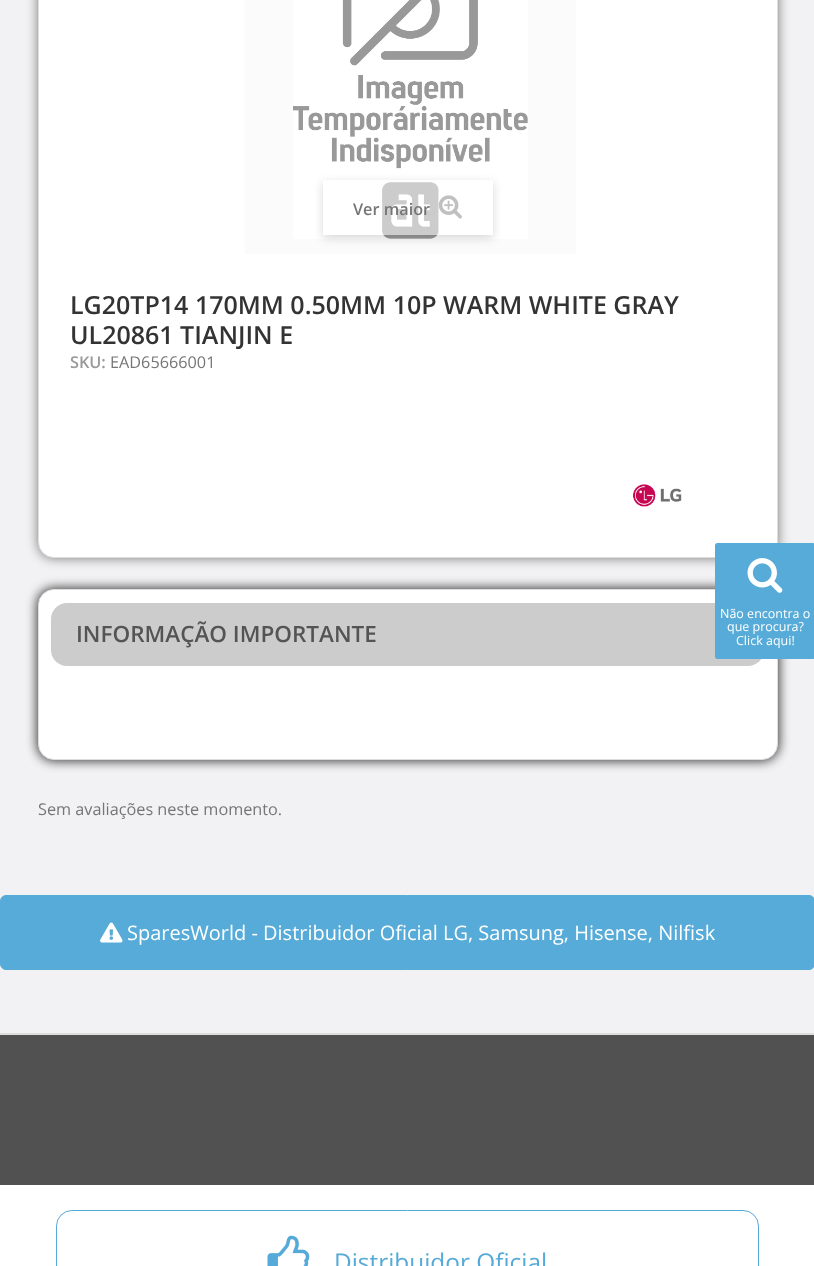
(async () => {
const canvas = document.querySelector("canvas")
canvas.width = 814
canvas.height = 1266
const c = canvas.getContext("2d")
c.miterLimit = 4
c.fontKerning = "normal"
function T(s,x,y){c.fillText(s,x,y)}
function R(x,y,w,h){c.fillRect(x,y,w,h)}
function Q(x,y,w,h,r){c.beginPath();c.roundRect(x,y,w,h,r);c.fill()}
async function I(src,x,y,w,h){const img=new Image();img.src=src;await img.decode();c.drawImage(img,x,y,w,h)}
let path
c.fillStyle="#fff"
R(0,0,814,1266)
c.fillStyle="#f2f2f4"
R(0,0,814,1033)
c.fillStyle="#ddd"
R(0,1033,814,2)
c.fillStyle="#00000080"
c.filter="blur(6px)"
c.beginPath()
c.roundRect(38,-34,740,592,16)
c.fill()
c.filter="none"
c.fillStyle="#fff"
c.beginPath()
c.roundRect(38.5,-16.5,739,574,15.5)
c.fill()
c.strokeStyle="#ddd"
c.stroke()
c.fillStyle="#fbfbfb"
R(245,0,331,254)
await I("1.png",293,0,235,239)
c.save()
path = new Path2D("M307 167h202v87h-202zm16 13h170v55h-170z")
c.clip(path,"evenodd")
c.fillStyle="#00000029"
c.filter="blur(5px)"
c.beginPath()
c.rect(323,183,170,55)
c.fill()
c.filter="none"
c.restore()
c.fillStyle="#ffffff80"
R(382,182,111,53)
c.font="600 16.25px Open Sans"
c.fillStyle="#777676"
T("Ver maior",353,215)
await I("2.png",438,195,24,24)
c.font="600 25px Open Sans"
c.fillStyle="#333"
T("LG20TP14 170MM 0.50MM 10P WARM WHITE GRAY",70,314)
T("UL20861 TIANJIN E",70,344)
c.font="600 16.25px Open Sans"
c.fillStyle="#999"
T("SKU:",70,368)
c.font="16.25px Open Sans"
c.fillStyle="#777676"
T("EAD65666001",110,368)
await I("3.png",633,484,49,23)
c.fillStyle="#00000080"
c.filter="blur(6px)"
c.beginPath()
c.roundRect(38,589,740,171,16)
c.fill()
c.filter="none"
c.filter="blur(6px)"
c.beginPath()
c.roundRect(38,589,740,171,16)
c.fill()
c.filter="none"
c.fillStyle="#fff"
c.beginPath()
c.roundRect(38.5,589.5,739,170,15.5)
c.fill()
c.stroke()
c.fillStyle="#ccc"
Q(51,603,713,63,16)
c.font="600 22.5px Open Sans"
c.fillStyle="#555454"
T("INFORMAÇÃO IMPORTANTE",76,642)
c.font="16.25px Open Sans"
c.fillStyle="#777676"
T("Sem avaliações neste momento.",38,815)
c.fillStyle="#56abd8"
c.beginPath()
c.roundRect(.5,895.5,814,74,5.5)
c.fill()
c.strokeStyle="#56abd8"
c.stroke()
await I("4.png",100,922,23,21)
c.font="20px Open Sans"
c.fillStyle="#fff"
T("SparesWorld - Distribuidor Oficial LG, Samsung, Hisense, Nilfisk",127,940)
c.fillStyle="#56abd8"
Q(715,543,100,116,2.5)
await I("5.png",747,558,36,35)
c.font="12.5px Open Sans"
c.fillStyle="#fff"
T("Não encontra o",720,618)
T("que procura?",727,631)
T("Click aqui!",736,645)
c.fillStyle="#515151"
R(0,1035,814,150)
c.beginPath()
c.roundRect(56.5,1210.5,702,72,15.5)
c.strokeStyle="#56aad9"
c.stroke()
await I("6.png",267,1235,43,31)
c.font="24.4px Open Sans"
c.fillStyle="#56aad9"
T("Distribuidor Oficial",334,1271)
})()
